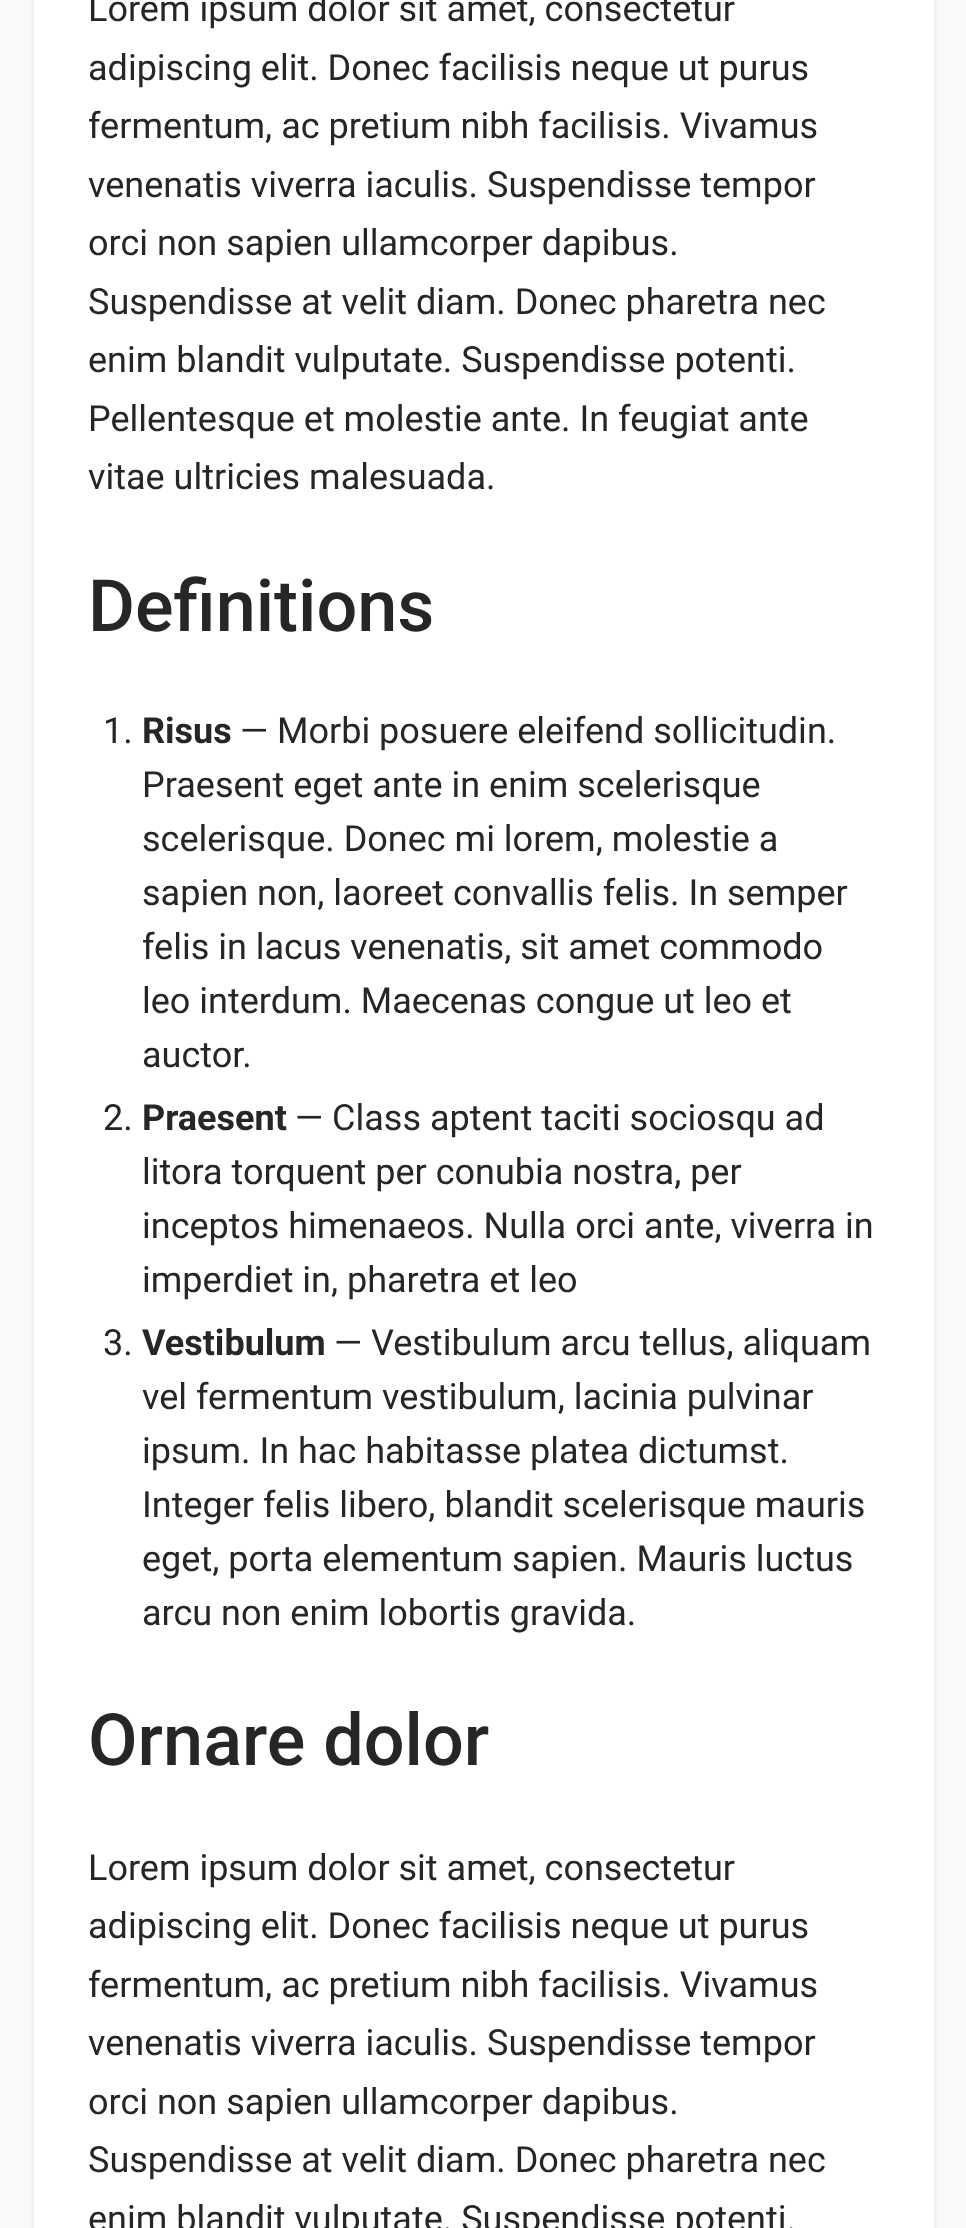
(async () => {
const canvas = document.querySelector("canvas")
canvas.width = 966
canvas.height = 2228
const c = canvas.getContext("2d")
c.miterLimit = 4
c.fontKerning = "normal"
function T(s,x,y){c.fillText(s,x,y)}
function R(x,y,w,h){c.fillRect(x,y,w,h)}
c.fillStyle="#fafafa"
R(0,0,966,2228)
c.fillStyle="#00000017"
c.filter="blur(3.5px)"
c.beginPath()
c.rect(34,-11,900,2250)
c.fill()
c.filter="none"
c.fillStyle="#fff"
R(34,0,900,2228)
c.font="36px Roboto"
c.fillStyle="#262626"
T("Lorem ipsum dolor sit amet, consectetur",88,21)
T("adipiscing elit. Donec facilisis neque ut purus",88,80)
T("fermentum, ac pretium nibh facilisis. Vivamus",88,138)
T("venenatis viverra iaculis. Suspendisse tempor",88,197)
T("orci non sapien ullamcorper dapibus.",88,255)
T("Suspendisse at velit diam. Donec pharetra nec",88,314)
T("enim blandit vulputate. Suspendisse potenti.",88,372)
T("Pellentesque et molestie ante. In feugiat ante",88,431)
T("vitae ultricies malesuada.",88,489)
c.font="500 72px Roboto"
T("Definitions",88,631)
c.font="36px Roboto"
T("1.",103,743)
c.font="bold 36px Roboto"
T("Risus",142,743)
c.font="36px Roboto"
T("— Morbi posuere eleifend sollicitudin.",240,743)
T("Praesent eget ante in enim scelerisque",142,797)
T("scelerisque. Donec mi lorem, molestie a",142,851)
T("sapien non, laoreet convallis felis. In semper",142,905)
T("felis in lacus venenatis, sit amet commodo",142,959)
T("leo interdum. Maecenas congue ut leo et",142,1013)
T("auctor.",142,1067)
T("2.",103,1130)
c.font="bold 36px Roboto"
T("Praesent",142,1130)
c.font="36px Roboto"
T("— Class aptent taciti sociosqu ad",295,1130)
T("litora torquent per conubia nostra, per",142,1184)
T("inceptos himenaeos. Nulla orci ante, viverra in",142,1238)
T("imperdiet in, pharetra et leo",142,1292)
T("3.",103,1355)
c.font="bold 36px Roboto"
T("Vestibulum",142,1355)
c.font="36px Roboto"
T("— Vestibulum arcu tellus, aliquam",334,1355)
T("vel fermentum vestibulum, lacinia pulvinar",142,1409)
T("ipsum. In hac habitasse platea dictumst.",142,1463)
T("Integer felis libero, blandit scelerisque mauris",142,1517)
T("eget, porta elementum sapien. Mauris luctus",142,1571)
T("arcu non enim lobortis gravida.",142,1625)
c.font="500 72px Roboto"
T("Ornare dolor",88,1765)
c.font="36px Roboto"
T("Lorem ipsum dolor sit amet, consectetur",88,1880)
T("adipiscing elit. Donec facilisis neque ut purus",88,1938)
T("fermentum, ac pretium nibh facilisis. Vivamus",88,1997)
T("venenatis viverra iaculis. Suspendisse tempor",88,2055)
T("orci non sapien ullamcorper dapibus.",88,2114)
T("Suspendisse at velit diam. Donec pharetra nec",88,2172)
T("enim blandit vulputate. Suspendisse potenti.",88,2231)
})()
